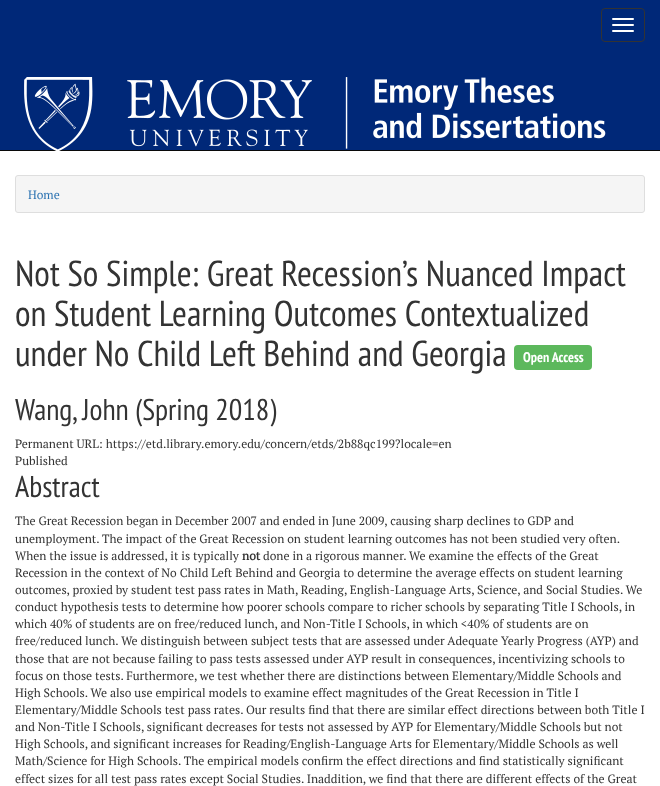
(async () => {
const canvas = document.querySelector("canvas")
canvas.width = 660
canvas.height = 786
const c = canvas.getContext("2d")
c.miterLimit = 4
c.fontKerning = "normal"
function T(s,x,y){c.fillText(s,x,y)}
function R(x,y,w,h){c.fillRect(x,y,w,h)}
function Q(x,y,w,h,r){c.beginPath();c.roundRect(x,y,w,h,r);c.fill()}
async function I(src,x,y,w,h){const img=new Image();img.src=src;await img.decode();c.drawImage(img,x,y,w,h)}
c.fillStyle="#fff"
R(0,0,660,786)
c.fillStyle="#002878"
R(0,0,660,150)
c.fillStyle="#090909"
R(0,150,660,1)
c.beginPath()
c.roundRect(601.5,8.5,43,33,3.5)
c.strokeStyle="#333"
c.stroke()
c.fillStyle="#fff"
Q(612,18,22,2,1)
Q(612,24,22,2,1)
Q(612,30,22,2,1)
await I("1.png",24,77,582,74)
c.fillStyle="#f5f5f5"
c.beginPath()
c.roundRect(15.5,175.5,629,37,2.5)
c.fill()
c.strokeStyle="#dedede"
c.stroke()
c.font="12px PT Serif"
c.fillStyle="#2e74b2"
T("Home",28,199)
c.font="36px PT Sans Narrow"
c.fillStyle="#333"
T("Not So Simple: Great Recession’s Nuanced Impact",15,286)
T("on Student Learning Outcomes Contextualized",15,326)
T("under No Child Left Behind and Georgia",15,366)
c.fillStyle="#5cb85c"
Q(514,345,78,25,4)
c.font="bold 14px PT Sans Narrow"
c.fillStyle="#fff"
T("Open Access",523,362)
c.font="30px PT Sans Narrow"
c.fillStyle="#333"
T("Wang, John (Spring 2018)",15,420)
c.font="12px PT Serif"
T("Permanent URL: https://etd.library.emory.edu/concern/etds/2b88qc199?locale=en",15,448)
T("Published",15,465)
c.font="30px PT Sans Narrow"
T("Abstract",15,497)
c.font="12px PT Serif"
T("The Great Recession began in December 2007 and ended in June 2009, causing sharp declines to GDP and",15,525)
T("unemployment. The impact of the Great Recession on student learning outcomes has not been studied very often.",15,543)
T("When the issue is addressed, it is typically",15,560)
c.font="bold 12px PT Serif"
T("not",242,560)
c.font="12px PT Serif"
T("done in a rigorous manner. We examine the effects of the Great",263,560)
T("Recession in the context of No Child Left Behind and Georgia to determine the average effects on student learning",15,577)
T("outcomes, proxied by student test pass rates in Math, Reading, English-Language Arts, Science, and Social Studies. We",15,594)
T("conduct hypothesis tests to determine how poorer schools compare to richer schools by separating Title I Schools, in",15,611)
T("which 40% of students are on free/reduced lunch, and Non-Title I Schools, in which <40% of students are on",15,628)
T("free/reduced lunch. We distinguish between subject tests that are assessed under Adequate Yearly Progress (AYP) and",15,645)
T("those that are not because failing to pass tests assessed under AYP result in consequences, incentivizing schools to",15,663)
T("focus on those tests. Furthermore, we test whether there are distinctions between Elementary/Middle Schools and",15,680)
T("High Schools. We also use empirical models to examine effect magnitudes of the Great Recession in Title I",15,697)
T("Elementary/Middle Schools test pass rates. Our results find that there are similar effect directions between both Title I",15,714)
T("and Non-Title I Schools, significant decreases for tests not assessed by AYP for Elementary/Middle Schools but not",15,731)
T("High Schools, and significant increases for Reading/English-Language Arts for Elementary/Middle Schools as well",15,748)
T("Math/Science for High Schools. The empirical models confirm the effect directions and find statistically significant",15,765)
T("effect sizes for all test pass rates except Social Studies. Inaddition, we find that there are different effects of the Great",15,783)
})()
